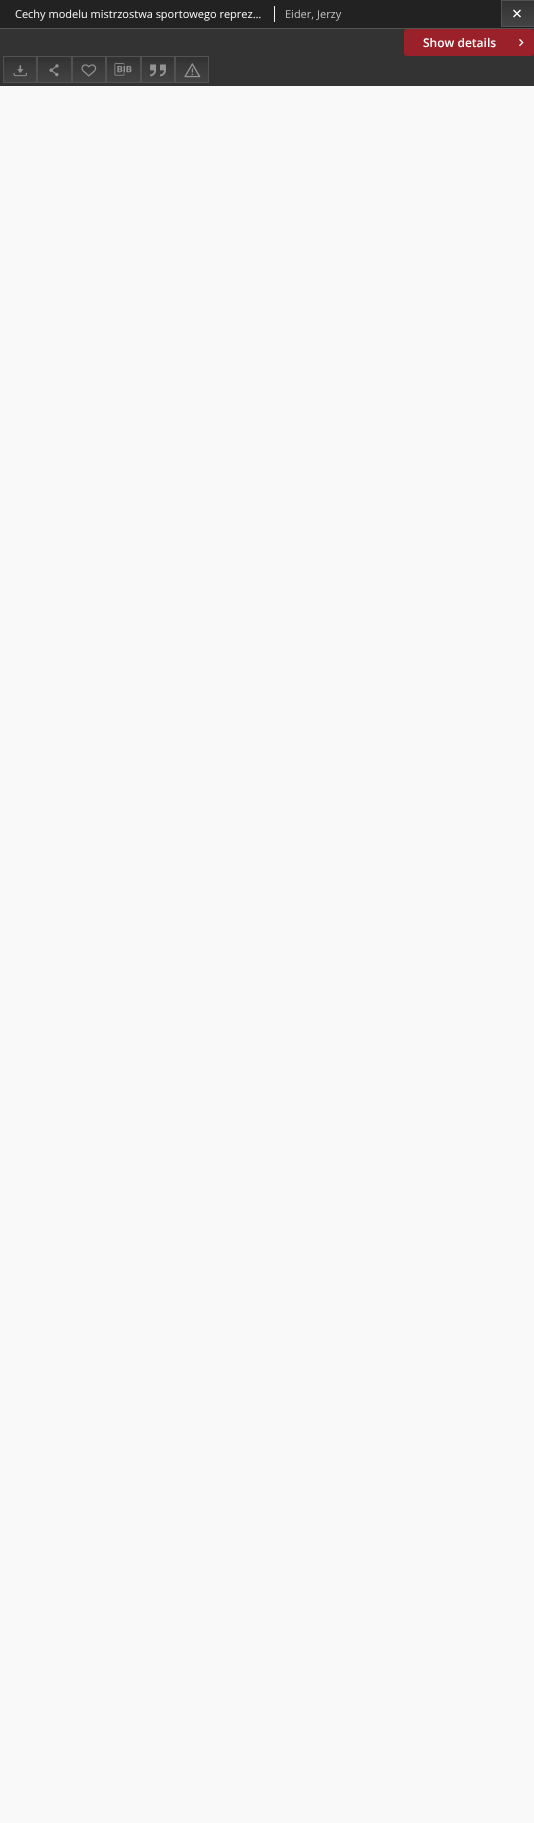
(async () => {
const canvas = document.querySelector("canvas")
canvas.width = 534
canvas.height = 1823
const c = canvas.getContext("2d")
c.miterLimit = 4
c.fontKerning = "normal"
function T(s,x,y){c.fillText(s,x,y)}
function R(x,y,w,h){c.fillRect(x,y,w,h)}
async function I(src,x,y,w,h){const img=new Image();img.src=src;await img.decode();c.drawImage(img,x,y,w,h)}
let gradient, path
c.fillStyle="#f9f9f9"
R(0,0,534,1823)
c.fillStyle="#222"
R(0,0,534,28)
c.fillStyle="#525252"
R(0,28,534,1)
c.fillStyle="#f5f5f5"
R(274,6,1,16)
c.font="11px Open Sans"
c.fillStyle="#f9f9f9"
T("Cechy modelu mistrzostwa sportowego reprez…",15,18)
c.fillStyle="#c1c1c1"
T("Eider, Jerzy",285,18)
gradient = c.createLinearGradient(518,1,518,26)
gradient.addColorStop(0,"#333")
gradient.addColorStop(1,"#434343")
c.fillStyle = gradient
R(502,1,32,25)
c.fillStyle="#525252"
R(501,0,33,1)
R(501,26,33,1)
R(501,0,1,27)
c.fillStyle="#fff"
path = new Path2D("M513 16.5l7-7l1 1l-7 7z")
c.fill(path)
path = new Path2D("M514 9.5l7 7l-1 1l-7-7z")
c.fill(path)
c.fillStyle="#333"
R(0,29,534,57)
c.fillStyle="#9a2129"
c.beginPath()
c.roundRect(404.5,29.5,129,26,2.5)
c.fill()
c.strokeStyle="#9a2129"
c.stroke()
c.font="600 12px Open Sans"
c.fillStyle="#fff"
T("Show details",423,47)
await I("1.png",519,39,5,7)
gradient = c.createLinearGradient(20,57,20,82)
gradient.addColorStop(0,"#333")
gradient.addColorStop(1,"#434343")
c.fillStyle = gradient
R(4,61,32,21)
c.strokeStyle="#525252"
c.strokeRect(3.5,56.5,33,26)
await I("2.png",13,65,14,12)
gradient = c.createLinearGradient(55,57,55,82)
gradient.addColorStop(0,"#333")
gradient.addColorStop(1,"#434343")
c.fillStyle = gradient
R(38,61,33,21)
c.strokeRect(37.5,56.5,34,26)
await I("3.png",49,64,10,13)
gradient = c.createLinearGradient(89,57,89,82)
gradient.addColorStop(0,"#333")
gradient.addColorStop(1,"#434343")
c.fillStyle = gradient
R(73,61,32,21)
c.strokeRect(72.5,56.5,33,26)
await I("4.png",81,64,16,13)
gradient = c.createLinearGradient(124,57,124,82)
gradient.addColorStop(0,"#333")
gradient.addColorStop(1,"#434343")
c.fillStyle = gradient
R(107,61,33,21)
c.strokeRect(106.5,56.5,34,26)
await I("5.png",114,63,18,13)
gradient = c.createLinearGradient(158,57,158,82)
gradient.addColorStop(0,"#333")
gradient.addColorStop(1,"#434343")
c.fillStyle = gradient
R(142,61,32,21)
c.strokeRect(141.5,56.5,33,26)
await I("6.png",150,64,16,13)
gradient = c.createLinearGradient(192,57,192,82)
gradient.addColorStop(0,"#333")
gradient.addColorStop(1,"#434343")
c.fillStyle = gradient
R(176,61,32,21)
c.strokeRect(175.5,56.5,33,26)
await I("7.png",184,63,17,15)
})()
